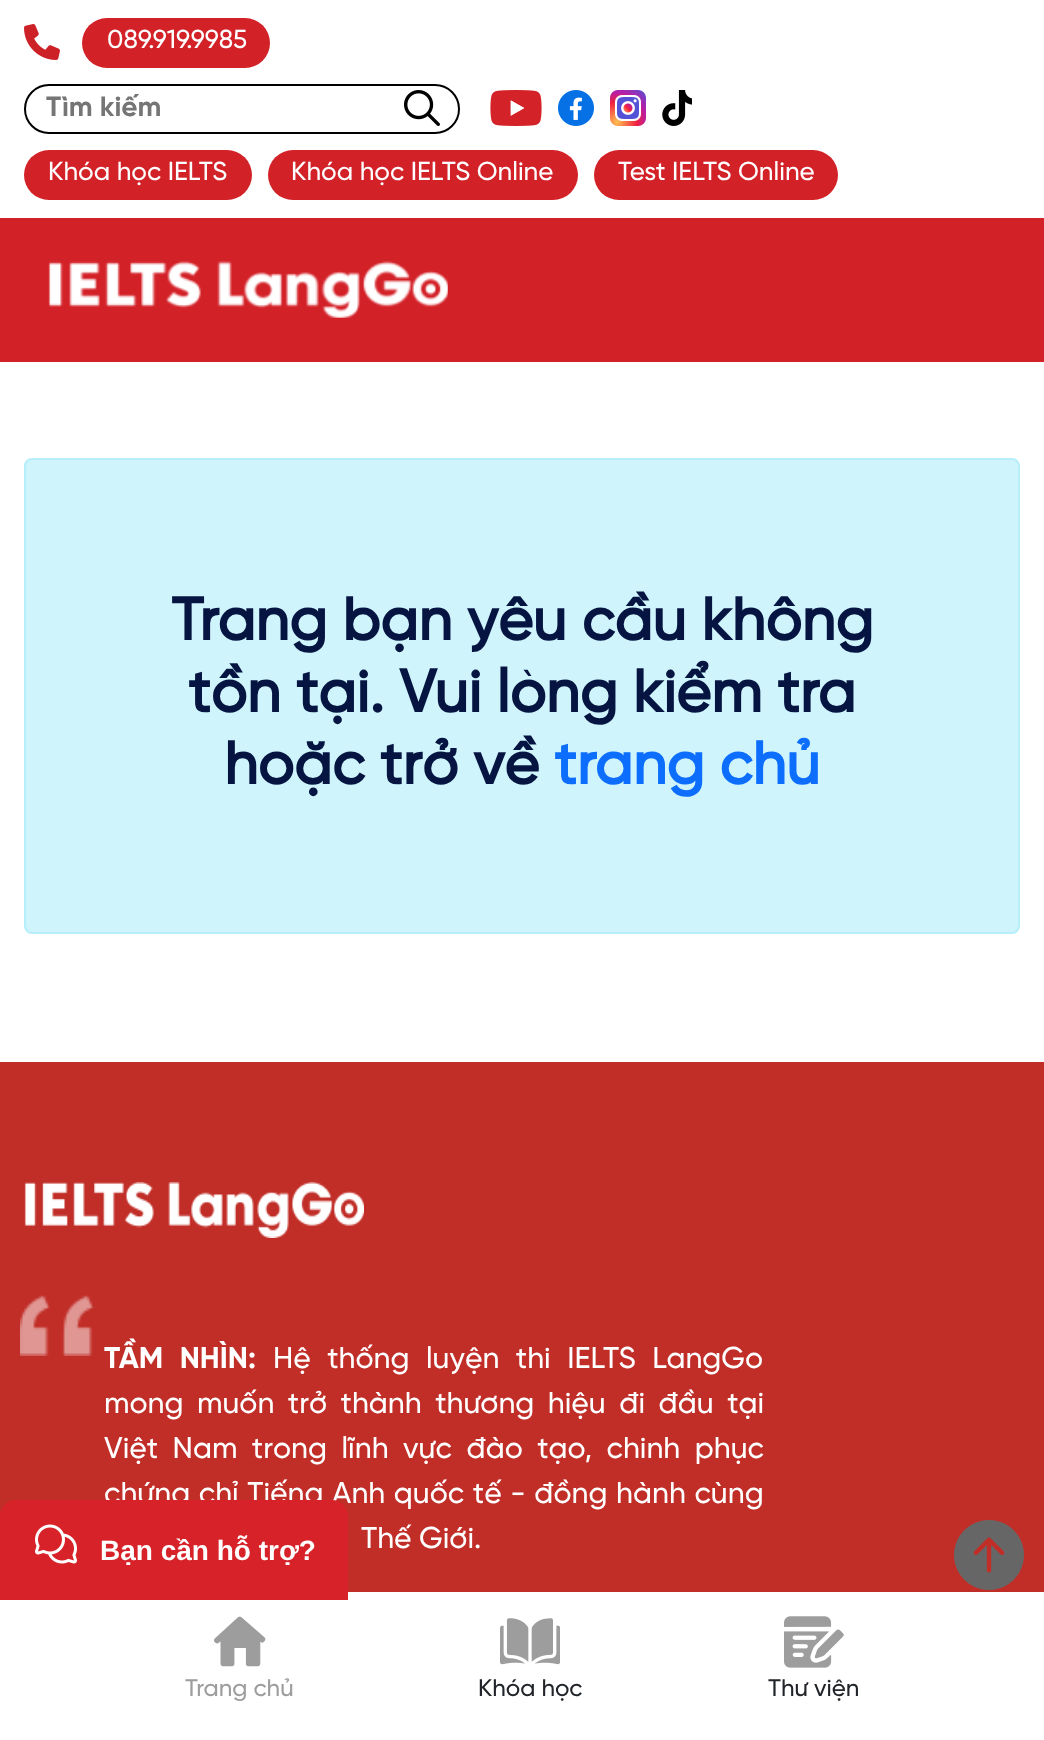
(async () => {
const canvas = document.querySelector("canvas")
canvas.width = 1044
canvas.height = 1740
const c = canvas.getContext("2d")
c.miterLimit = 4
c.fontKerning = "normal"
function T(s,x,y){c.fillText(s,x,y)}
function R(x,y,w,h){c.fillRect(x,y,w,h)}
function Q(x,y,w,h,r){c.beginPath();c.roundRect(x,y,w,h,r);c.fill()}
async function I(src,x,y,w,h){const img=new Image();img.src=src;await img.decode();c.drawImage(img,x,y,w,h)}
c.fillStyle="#fff"
R(0,0,1044,1740)
await I("1.png",24,24,36,36)
c.fillStyle="#d32128"
Q(82,18,188,50,25)
c.font="500 26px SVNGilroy"
c.fillStyle="#fff"
T("089.919.9985",107,48)
c.beginPath()
c.roundRect(25,85,434,48,24)
c.strokeStyle="#000"
c.lineWidth=2
c.stroke()
c.font="bold 28px 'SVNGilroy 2'"
c.fillStyle="#757575"
T("Tìm kiếm",46,116)
await I("2.png",404,90,36,36)
await I("3.png",490,90,52,36)
await I("4.png",558,90,36,36)
await I("5.png",610,90,36,36)
await I("6.png",662,90,30,36)
c.fillStyle="#d32128"
Q(24,150,228,50,25)
c.font="500 26px SVNGilroy"
c.fillStyle="#fff"
T("Khóa học IELTS",48,180)
c.fillStyle="#d32128"
Q(268,150,310,50,25)
c.fillStyle="#fff"
T("Khóa học IELTS Online",291,180)
c.fillStyle="#d32128"
Q(594,150,244,50,25)
c.fillStyle="#fff"
T("Test IELTS Online",618,180)
c.fillStyle="#d32128"
R(0,218,1044,144)
await I("7.png",48,261,400,57)
c.fillStyle="#cff4fc"
c.beginPath()
c.roundRect(25,459,994,474,7)
c.fill()
c.strokeStyle="#b6effb"
c.stroke()
c.font="bold 60px SVNGilroy"
c.fillStyle="#051441"
T("Trang bạn yêu cầu không",171,640)
T("tồn tại. Vui lòng kiểm tra",188,712)
T("hoặc trở về",224,784)
c.fillStyle="#0d6efd"
T("trang chủ",554,784)
c.fillStyle="#c12e28"
R(0,1062,1044,530)
await I("8.png",24,1182,340,56)
await I("9.png",20,1295,74,61)
c.wordSpacing="9px"
c.font="bold 30px 'SVNGilroy 2'"
c.fillStyle="#fff"
T("TẦM NHÌN:",104,1368)
c.font="500 30px SVNGilroy"
T("Hệ thống luyện thi IELTS LangGo",273,1368)
c.wordSpacing="6px"
T("mong muốn trở thành thương hiệu đi đầu tại",104,1413)
c.wordSpacing="7px"
T("Việt Nam trong lĩnh vực đào tạo, chinh phục",104,1458)
c.wordSpacing="1.1px"
T("chứng chỉ Tiếng Anh quốc tế - đồng hành cùng",104,1503)
c.wordSpacing="0px"
T("Thế Giới.",361,1548)
await I("10.png",954,1520,70,70)
c.fillStyle="#d72229"
c.beginPath()
c.roundRect(0,1500,348,100,[16,16,0,0])
c.fill()
await I("11.png",35,1524,42,40)
c.font="bold 28px Liberation Sans"
c.fillStyle="#fff"
T("Bạn cần hỗ trợ?",100,1560)
await I("12.png",214,1616,52,51)
c.font="500 24px SVNGilroy"
c.fillStyle="#9d9d9d"
T("Trang chủ",185,1696)
await I("13.png",500,1618,60,47)
c.fillStyle="#212529"
T("Khóa học",478,1696)
await I("14.png",784,1616,60,52)
T("Thư viện",768,1696)
})()
